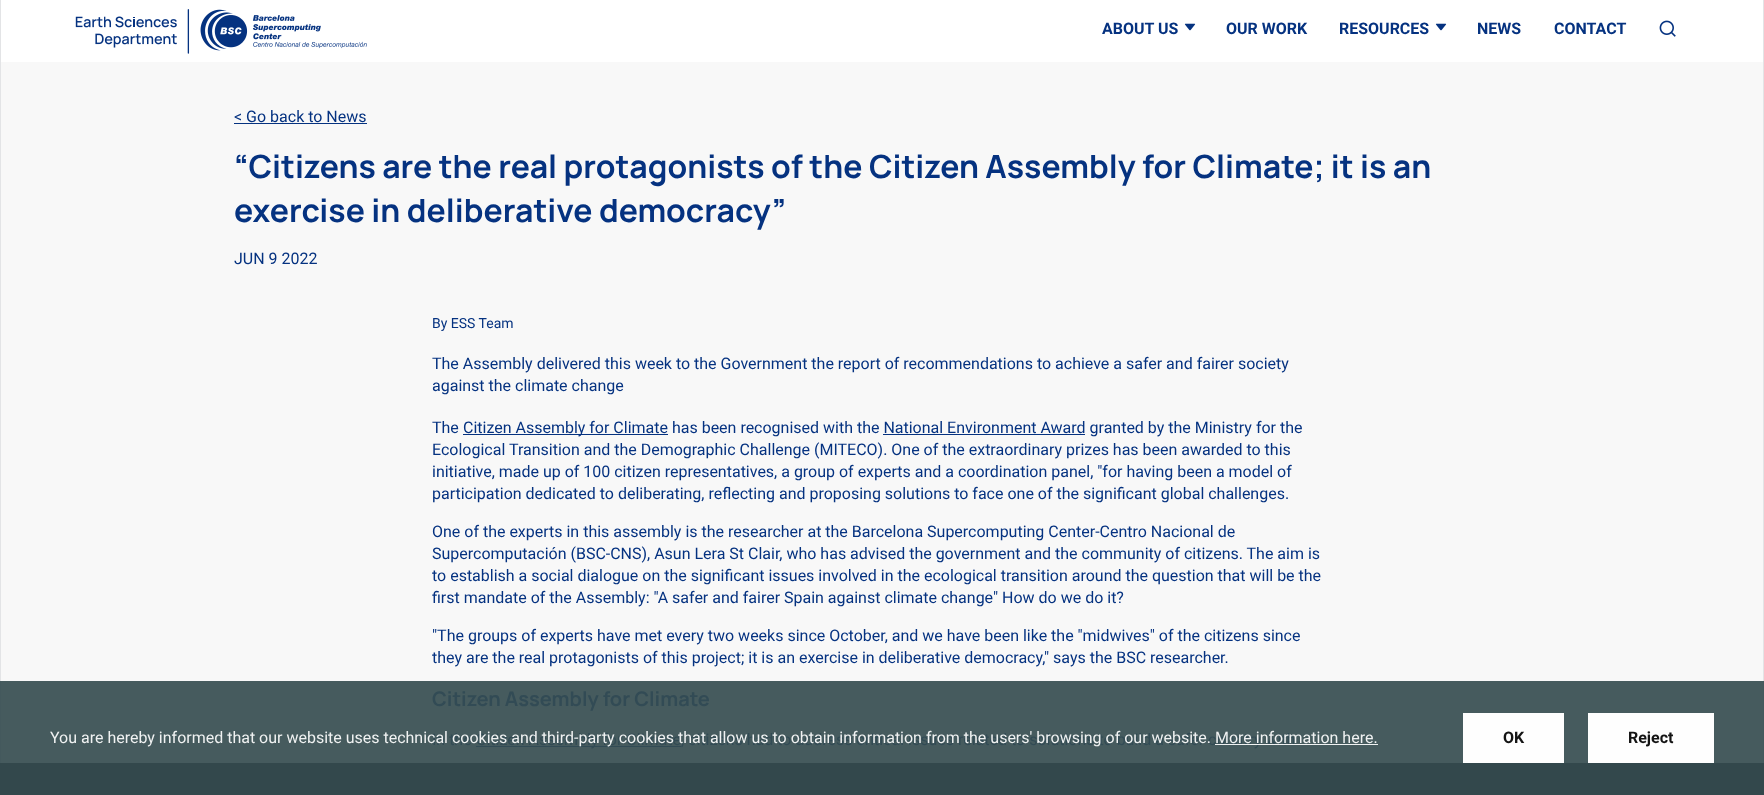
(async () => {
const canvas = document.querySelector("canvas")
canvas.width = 1764
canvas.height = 795
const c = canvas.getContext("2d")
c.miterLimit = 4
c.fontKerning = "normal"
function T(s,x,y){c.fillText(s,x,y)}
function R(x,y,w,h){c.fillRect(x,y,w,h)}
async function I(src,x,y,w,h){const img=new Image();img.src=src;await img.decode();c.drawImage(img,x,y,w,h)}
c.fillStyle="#fff"
R(0,0,1764,795)
c.fillStyle="#e3e4e6"
R(1763,0,1,681)
R(0,0,1,681)
await I("1.png",75,9,292,45)
c.font="bold 16px Roboto"
c.fillStyle="#053280"
T("ABOUT US",1102,34)
await I("2.png",1184,23,12,8)
T("OUR WORK",1226,34)
T("RESOURCES",1339,34)
await I("2.png",1435,23,12,8)
T("NEWS",1477,34)
T("CONTACT",1554,34)
await I("3.png",1659,20,17,17)
c.fillStyle="#f8f8f8"
R(1,62,1762,619)
c.font="16px Roboto"
c.fillStyle="#053280"
T("< Go back to News",234,122)
R(234,123,133,1)
c.font="200 32px Manrope"
T("“Citizens are the real protagonists of the Citizen Assembly for Climate; it is an",234,178)
T("exercise in deliberative democracy”",234,222)
c.font="16px Roboto"
T("JUN 9 2022",234,264)
c.fillStyle="#465b5e"
R(1,681,1762,114)
c.fillStyle="#44595d"
R(1763,681,1,114)
R(0,681,1,114)
c.font="14px Roboto"
c.fillStyle="#053280"
T("By ESS Team",432,328)
c.font="16px Roboto"
T("The Assembly delivered this week to the Government the report of recommendations to achieve a safer and fairer society",432,369)
T("against the climate change",432,391)
T("The",432,433)
R(463,434,205,1)
T("Citizen Assembly for Climate has been recognised with the National Environment Award granted by the Ministry for the",463,433)
R(883,434,202,1)
T("Ecological Transition and the Demographic Challenge (MITECO). One of the extraordinary prizes has been awarded to this",432,455)
T("initiative, made up of 100 citizen representatives, a group of experts and a coordination panel, \"for having been a model of",432,477)
T("participation dedicated to deliberating, reflecting and proposing solutions to face one of the significant global challenges.",432,499)
T("One of the experts in this assembly is the researcher at the Barcelona Supercomputing Center-Centro Nacional de",432,537)
T("Supercomputación (BSC-CNS), Asun Lera St Clair, who has advised the government and the community of citizens. The aim is",432,559)
T("to establish a social dialogue on the significant issues involved in the ecological transition around the question that will be the",432,581)
T("first mandate of the Assembly: \"A safer and fairer Spain against climate change\" How do we do it?",432,603)
T("\"The groups of experts have met every two weeks since October, and we have been like the \"midwives\" of the citizens since",432,641)
T("they are the real protagonists of this project; it is an exercise in deliberative democracy,\" says the BSC researcher.",432,663)
c.font="200 20px Manrope"
c.fillStyle="#324b55"
T("Citizen Assembly for Climate",432,706)
c.font="16px Roboto"
T("In the",432,745)
R(476,746,205,1)
T("Citizen Assembly for Climate, citizens had to address critical issues related to solutions to build a safer country with",476,745)
c.fillStyle="#32474beb"
R(0,763,1764,32)
c.fillStyle="#f0f2f2"
T("You are hereby informed that our website uses technical cookies and third-party cookies that allow us to obtain information from the users' browsing of our website. More information here.",50,743)
c.fillStyle="#ffffffeb"
R(1215,744,163,1)
c.fillStyle="#fefefe"
R(1463,713,101,50)
c.font="bold 16px Roboto"
c.fillStyle="#141414"
T("OK",1503,743)
c.fillStyle="#fefefe"
R(1588,713,126,50)
c.fillStyle="#141414"
T("Reject",1628,743)
})()
